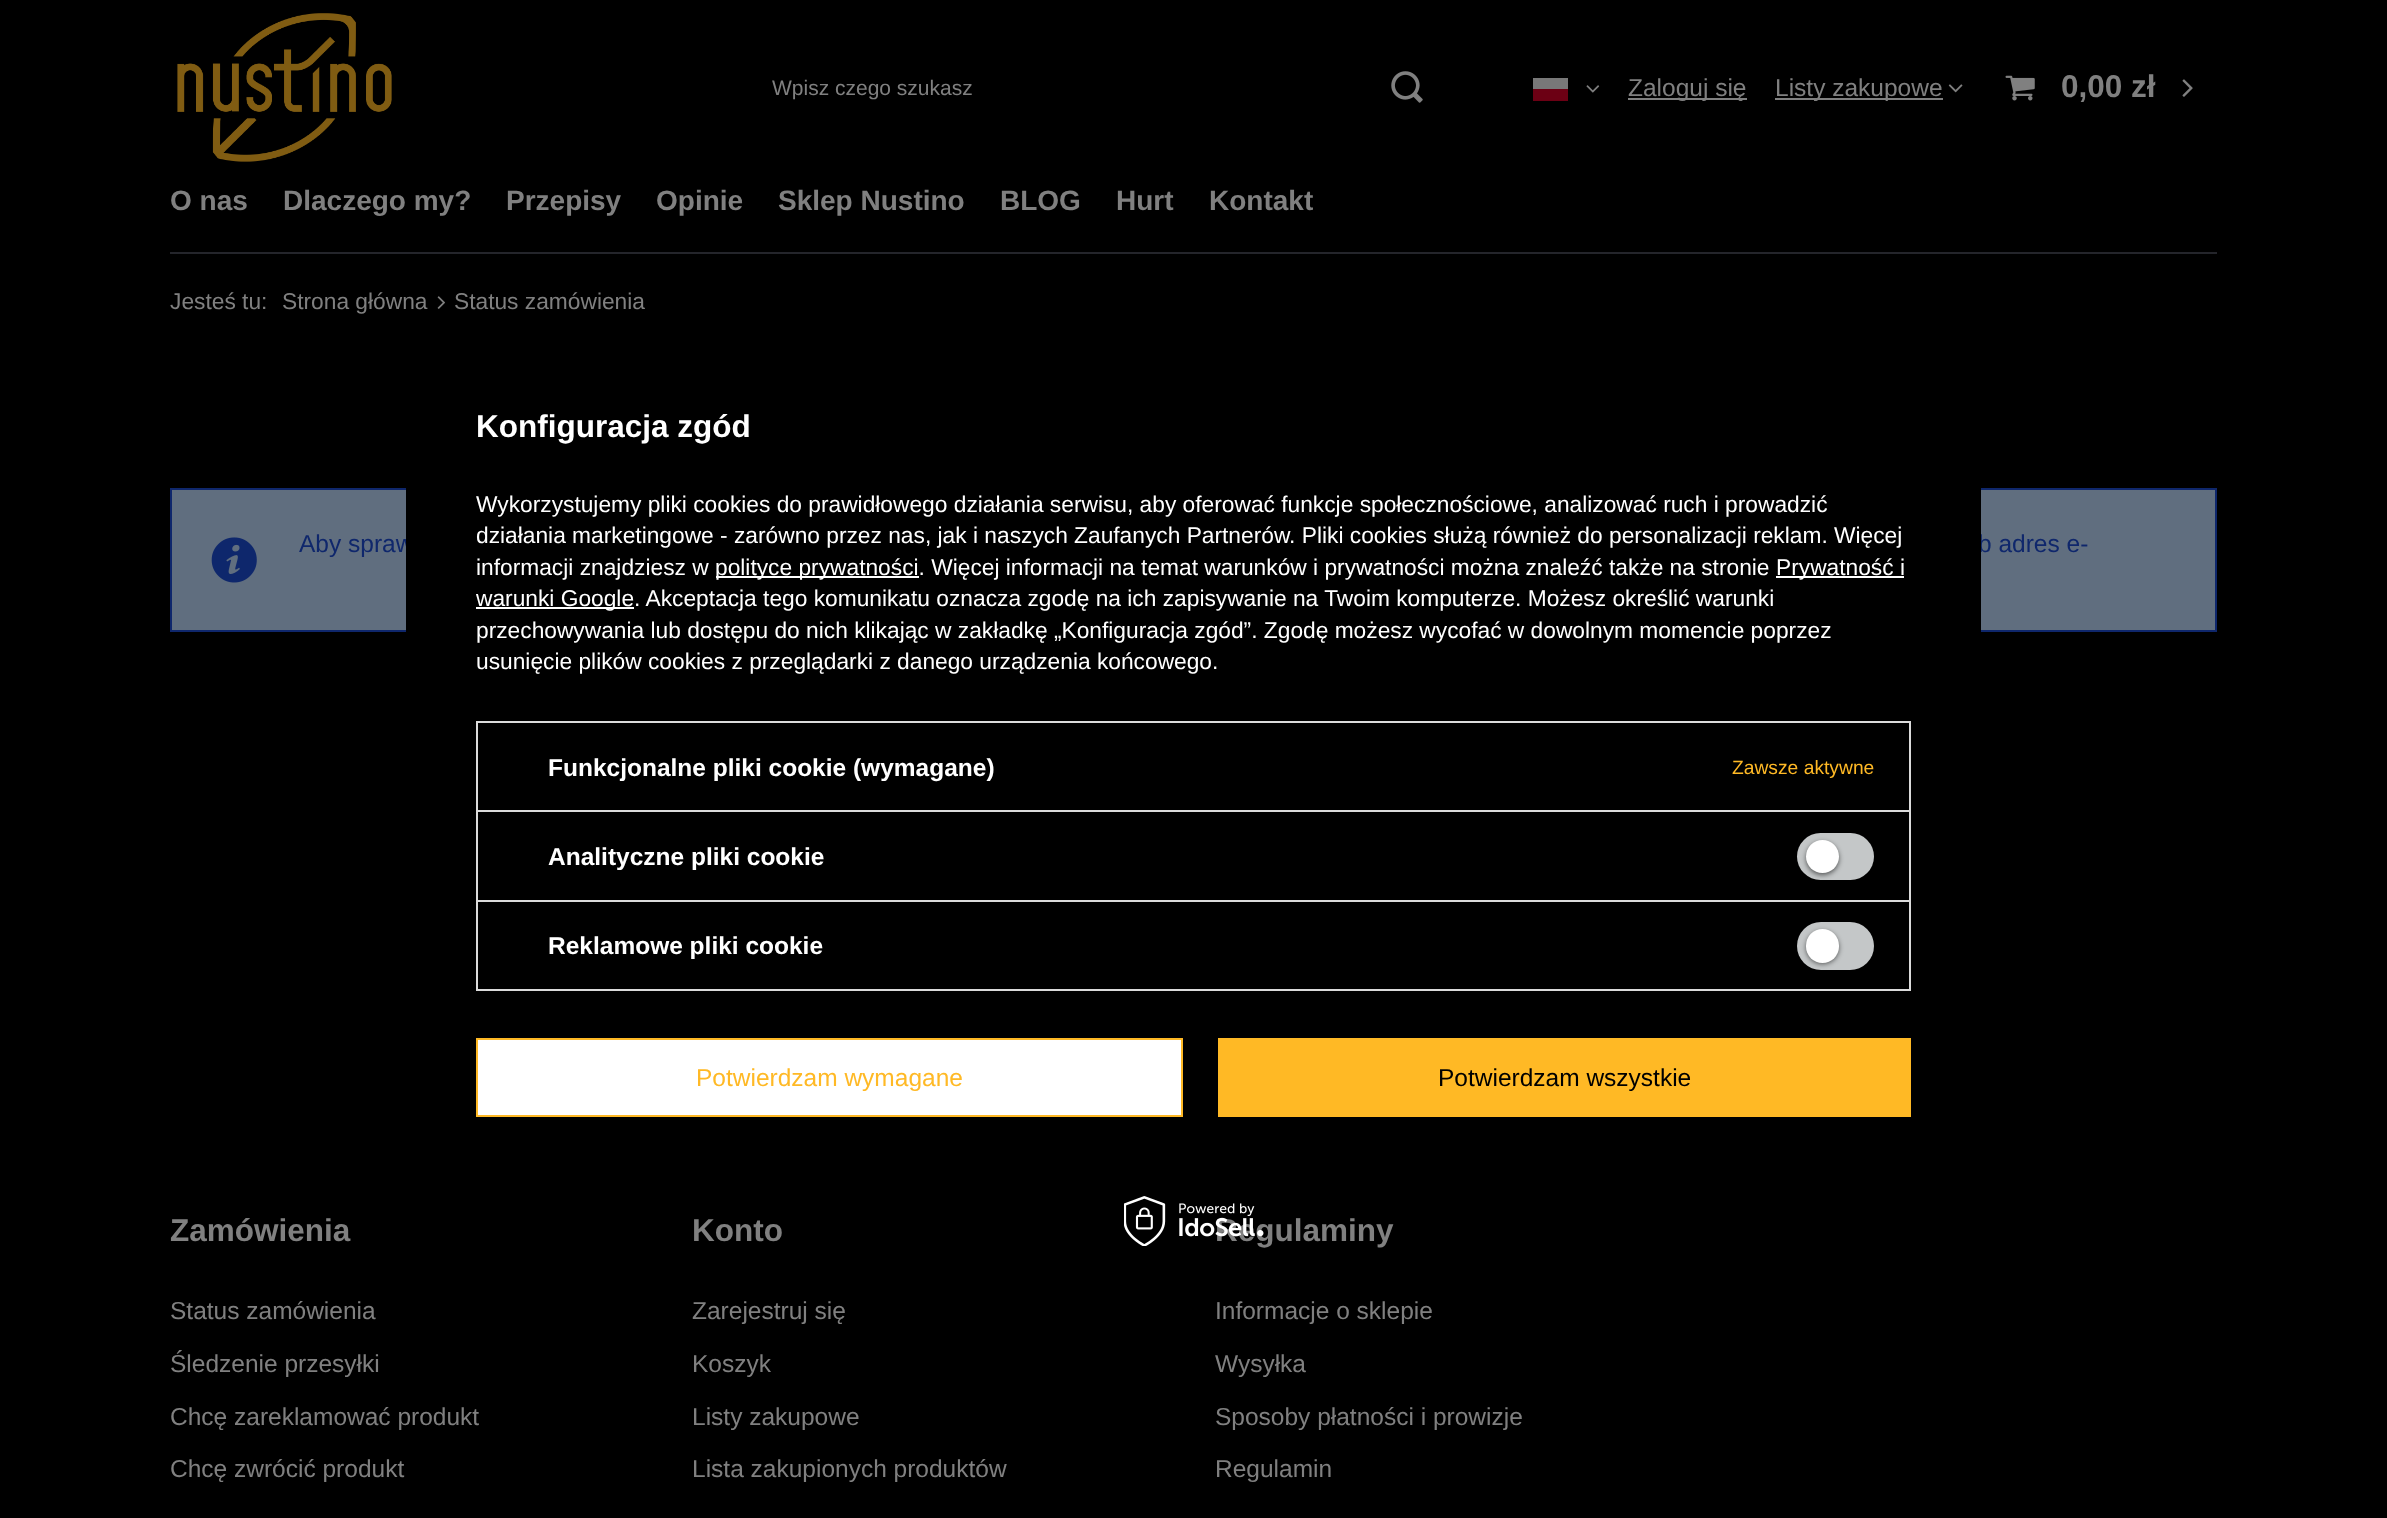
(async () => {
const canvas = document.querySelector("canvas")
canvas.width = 2387
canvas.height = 1518
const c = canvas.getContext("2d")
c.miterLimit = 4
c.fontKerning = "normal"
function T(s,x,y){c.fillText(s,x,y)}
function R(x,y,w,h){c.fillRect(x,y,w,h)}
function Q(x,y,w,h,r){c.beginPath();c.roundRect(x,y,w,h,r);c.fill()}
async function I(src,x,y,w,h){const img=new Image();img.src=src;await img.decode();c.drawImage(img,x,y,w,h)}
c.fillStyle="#000"
R(0,0,2387,1518)
await I("1.png",177,13,215,149)
c.font="21px Liberation Sans"
c.fillStyle="#808080"
T("Wpisz czego szukasz",772,95)
await I("2.png",1391,71,32,32)
c.fillStyle="#787878"
R(1533,78,35,11)
c.fillStyle="#6c0014"
R(1533,89,35,12)
await I("3.png",1586,85,14,8)
c.fillStyle="#808080"
R(1628,98,119,2)
c.font="24.5px Liberation Sans"
T("Zaloguj się",1628,96)
R(1775,98,168,2)
T("Listy zakupowe",1775,96)
await I("4.png",1948,84,15,9)
await I("5.png",2005,75,30,26)
c.font="bold 31.5px Liberation Sans"
T("0,00 zł",2061,97)
await I("6.png",2182,79,11,18)
c.fillStyle="#24252b"
R(170,252,2047,2)
c.font="bold 28px Liberation Sans"
c.fillStyle="#808080"
T("O nas",170,210)
T("Dlaczego my?",283,210)
T("Przepisy",506,210)
T("Opinie",656,210)
T("Sklep Nustino",778,210)
T("BLOG",1000,210)
T("Hurt",1116,210)
T("Kontakt",1209,210)
c.font="22.75px Liberation Sans"
T("Jesteś tu:",170,309)
T("Strona główna",282,309)
await I("7.png",437,296,8,13)
T("Status zamówienia",454,309)
c.fillStyle="#606e7f"
c.beginPath()
c.rect(171,489,2045,142)
c.fill()
c.strokeStyle="#0f276c"
c.lineWidth=2
c.stroke()
await I("8.png",211,537,46,46)
c.font="24.5px Liberation Sans"
c.fillStyle="#0f276c"
T("Aby spraw",299,552)
T("b adres e-",1978,552)
c.fillStyle="#000"
R(406,488,1575,144)
c.font="bold 31.5px Liberation Sans"
c.fillStyle="#fff"
T("Konfiguracja zgód",476,437)
c.font="22.75px Liberation Sans"
T("Wykorzystujemy pliki cookies do prawidłowego działania serwisu, aby oferować funkcje społecznościowe, analizować ruch i prowadzić",476,512)
T("działania marketingowe - zarówno przez nas, jak i naszych Zaufanych Partnerów. Pliki cookies służą również do personalizacji reklam. Więcej",476,543)
T("informacji znajdziesz w",476,575)
R(716,576,203,2)
T("polityce prywatności. Więcej informacji na temat warunków i prywatności można znaleźć także na stronie",715,575)
R(1776,576,128,2)
T("Prywatność i",1776,575)
R(476,607,158,2)
T("warunki Google. Akceptacja tego komunikatu oznacza zgodę na ich zapisywanie na Twoim komputerze. Możesz określić warunki",476,606)
T("przechowywania lub dostępu do nich klikając w zakładkę „Konfiguracja zgód”. Zgodę możesz wycofać w dowolnym momencie poprzez",476,638)
T("usunięcie plików cookies z przeglądarki z danego urządzenia końcowego.",476,669)
c.fillStyle="#dbdbdb"
R(476,721,1435,2)
R(1909,721,2,89)
R(476,721,2,89)
c.font="bold 24.5px Liberation Sans"
c.fillStyle="#fff"
T("Funkcjonalne pliki cookie (wymagane)",548,776)
c.font="19.25px Liberation Sans"
c.fillStyle="#ffb925"
T("Zawsze aktywne",1732,774)
c.fillStyle="#dbdbdb"
R(476,810,1435,2)
R(1909,810,2,90)
R(476,810,2,90)
c.font="bold 24.5px Liberation Sans"
c.fillStyle="#fff"
T("Analityczne pliki cookie",548,865)
c.fillStyle="#c4c7c8"
Q(1797,833,77,47,23.5)
c.fillStyle="#0000008f"
c.filter="blur(2.5px)"
c.beginPath()
c.roundRect(1806,842,33,33,16.5)
c.fill()
c.filter="none"
c.fillStyle="#fff"
c.beginPath()
c.arc(1822.5,856.5,16.5,0,7)
c.fill()
c.strokeStyle="#dbdbdb"
c.strokeRect(477,901,1433,89)
T("Reklamowe pliki cookie",548,954)
c.fillStyle="#c4c7c8"
Q(1797,922,77,48,24)
c.fillStyle="#0000008f"
c.filter="blur(2.5px)"
c.beginPath()
c.roundRect(1806,931,33,33,16.5)
c.fill()
c.filter="none"
c.fillStyle="#fff"
Q(1806,929,33,34,16.5)
c.beginPath()
c.rect(477,1039,705,77)
c.fill()
c.strokeStyle="#ffb925"
c.stroke()
c.font="24.5px Liberation Sans"
c.fillStyle="#ffb925"
T("Potwierdzam wymagane",696,1086)
R(1218,1038,693,79)
c.fillStyle="#000"
T("Potwierdzam wszystkie",1438,1086)
c.font="bold 31.5px Liberation Sans"
c.fillStyle="#808080"
T("Regulaminy",1215,1241)
await I("9.png",1124,1196,140,50)
T("Zamówienia",170,1241)
c.font="24.5px Liberation Sans"
T("Status zamówienia",170,1319)
T("Śledzenie przesyłki",170,1372)
T("Chcę zareklamować produkt",170,1425)
T("Chcę zwrócić produkt",170,1477)
c.font="bold 31.5px Liberation Sans"
T("Konto",692,1241)
c.font="24.5px Liberation Sans"
T("Zarejestruj się",692,1319)
T("Koszyk",692,1372)
T("Listy zakupowe",692,1425)
T("Lista zakupionych produktów",692,1477)
T("Informacje o sklepie",1215,1319)
T("Wysyłka",1215,1372)
T("Sposoby płatności i prowizje",1215,1425)
T("Regulamin",1215,1477)
})()
